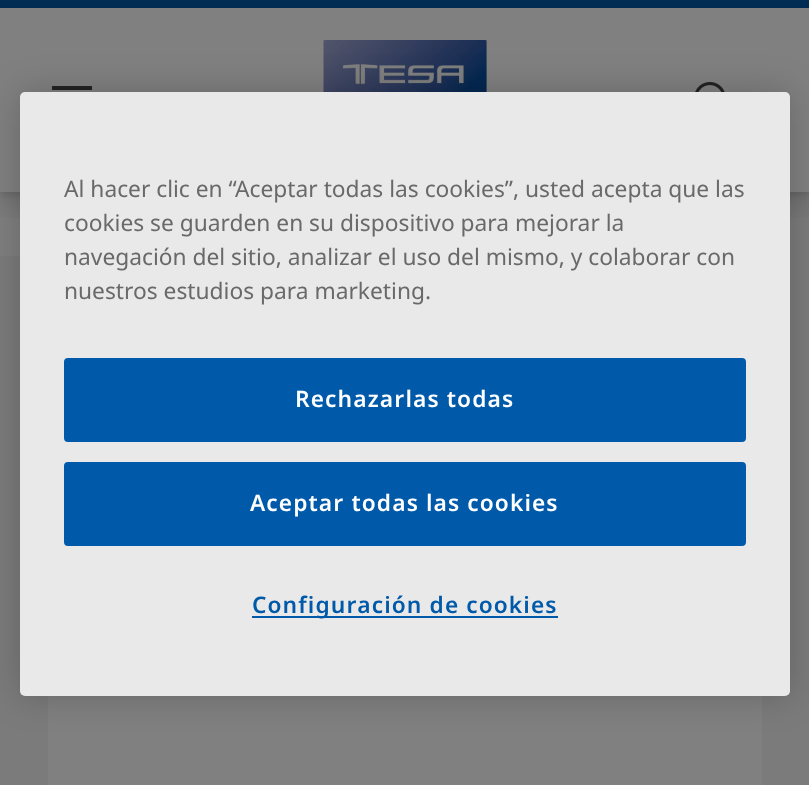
(async () => {
const canvas = document.querySelector("canvas")
canvas.width = 809
canvas.height = 785
const c = canvas.getContext("2d")
c.miterLimit = 4
c.fontKerning = "normal"
function T(s,x,y){c.fillText(s,x,y)}
function R(x,y,w,h){c.fillRect(x,y,w,h)}
function Q(x,y,w,h,r){c.beginPath();c.roundRect(x,y,w,h,r);c.fill()}
async function I(src,x,y,w,h){const img=new Image();img.src=src;await img.decode();c.drawImage(img,x,y,w,h)}
let path
c.fillStyle="#7b7b7b"
R(0,0,809,785)
c.fillStyle="#002d55"
R(0,0,809,8)
c.fillStyle="#808080"
R(0,8,809,184)
c.fillStyle="#232323"
R(52,86,40,4)
await I("1.png",323,40,164,52)
c.fillStyle="#7f7f7f"
R(0,192,20,64)
c.save()
path = new Path2D("M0 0h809v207h-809zm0 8h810v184h-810z")
c.clip(path,"evenodd")
c.fillStyle="#00000026"
c.filter="blur(4px)"
c.beginPath()
c.rect(0,10,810,184)
c.fill()
c.filter="none"
c.restore()
c.save()
c.beginPath()
c.rect(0,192,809,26)
c.clip()
c.fillStyle="#0000001a"
c.filter="blur(12px)"
c.beginPath()
c.rect(0,24,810,184)
c.fill()
c.filter="none"
c.restore()
await I("2.png",695,82,30,10)
c.fillStyle="#808080"
R(48,696,714,89)
c.fillStyle="#00000033"
c.filter="blur(18px)"
c.beginPath()
c.roundRect(20,92,770,604,5)
c.fill()
c.filter="none"
c.fillStyle="#e9e9e9"
Q(20,92,770,604,5)
c.font="22.75px Noto Sans"
c.fillStyle="#696969"
T("Al hacer clic en “Aceptar todas las cookies”, usted acepta que las",64,197)
T("cookies se guarden en su dispositivo para mejorar la",64,231)
T("navegación del sitio, analizar el uso del mismo, y colaborar con",64,265)
T("nuestros estudios para marketing.",64,299)
c.fillStyle="#005aa9"
c.beginPath()
c.roundRect(65,359,680,82,3)
c.fill()
c.strokeStyle="#005aa9"
c.lineWidth=2
c.stroke()
c.letterSpacing="1.1px"
c.font="600 22.75px Noto Sans"
c.fillStyle="#fff"
T("Rechazarlas todas",295,407)
c.fillStyle="#005aa9"
c.beginPath()
c.roundRect(65,463,680,82,3)
c.fill()
c.stroke()
c.fillStyle="#fff"
T("Aceptar todas las cookies",250,511)
c.fillStyle="#005aa9"
R(252,616,306,2)
T("Configuración de cookies",252,613)
})()
